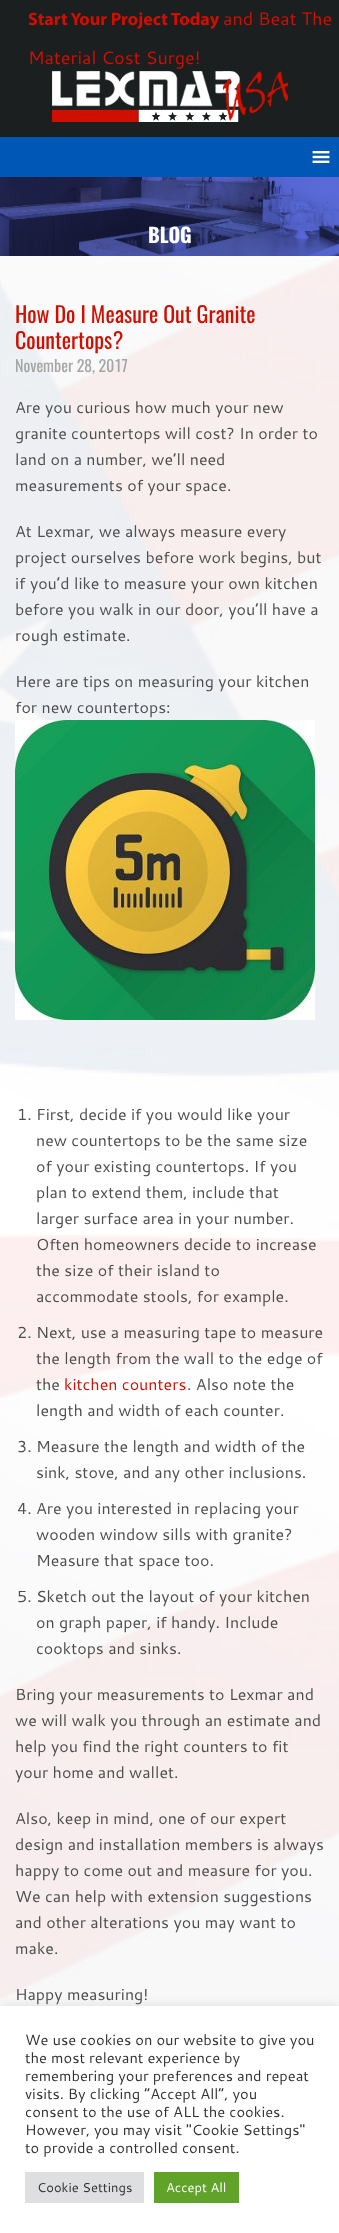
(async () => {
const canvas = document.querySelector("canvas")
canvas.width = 339
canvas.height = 2233
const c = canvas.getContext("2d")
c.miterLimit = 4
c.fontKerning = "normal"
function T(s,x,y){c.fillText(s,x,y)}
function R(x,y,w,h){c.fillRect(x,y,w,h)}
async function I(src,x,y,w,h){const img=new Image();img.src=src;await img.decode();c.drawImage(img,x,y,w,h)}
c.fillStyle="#fff"
R(0,0,339,2233)
c.fillStyle="#1b1f1f"
R(0,0,339,137)
c.font="bold 18px Myriad"
c.fillStyle="#cf0f00"
T("Start Your Project Today",28,25)
c.font="18px Cantarell"
T("and Beat The",223,25)
T("Material Cost Surge!",28,64)
await I("1.png",52,71,236,51)
c.fillStyle="#0057b5"
R(0,137,339,40)
await I("2.png",312,151,18,12)
await I("3.png",0,177,339,79)
c.font="bold 20px Oswald"
c.fillStyle="#fff"
T("BLOG",148,243)
await I("4.png",0,256,339,1750)
c.font="22px Oswald"
c.fillStyle="#cf0f00"
T("How Do I Measure Out Granite",15,323)
T("Countertops?",15,349)
c.font="16px Oswald"
c.fillStyle="#a5a5a5"
T("November 28, 2017",15,372)
c.font="16px Cantarell"
c.fillStyle="#4f4e4e"
T("Are you curious how much your new",15,413)
T("granite countertops will cost? In order to",15,439)
T("land on a number, we’ll need",15,465)
T("measurements of your space.",15,491)
T("At Lexmar, we always measure every",15,537)
T("project ourselves before work begins, but",15,563)
T("if you’d like to measure your own kitchen",15,589)
T("before you walk in our door, you’ll have a",15,615)
T("rough estimate.",15,641)
T("Here are tips on measuring your kitchen",15,687)
T("for new countertops:",15,713)
await I("5.png",15,720,300,300)
T("1. First, decide if you would like your",17,1120)
T("new countertops to be the same size",36,1146)
T("of your existing countertops. If you",36,1172)
T("plan to extend them, include that",36,1198)
T("larger surface area in your number.",36,1224)
T("Often homeowners decide to increase",36,1250)
T("the size of their island to",36,1276)
T("accommodate stools, for example.",36,1302)
T("2. Next, use a measuring tape to measure",17,1338)
T("the length from the wall to the edge of",36,1364)
T("the",36,1390)
c.fillStyle="#cf0f00"
T("kitchen counters",64,1390)
c.fillStyle="#4f4e4e"
T(". Also note the",187,1390)
T("length and width of each counter.",36,1416)
T("3. Measure the length and width of the",17,1452)
T("sink, stove, and any other inclusions.",36,1478)
T("4. Are you interested in replacing your",17,1514)
T("wooden window sills with granite?",36,1540)
T("Measure that space too.",36,1566)
T("5. Sketch out the layout of your kitchen",17,1602)
T("on graph paper, if handy. Include",36,1628)
T("cooktops and sinks.",36,1654)
T("Bring your measurements to Lexmar and",15,1700)
T("we will walk you through an estimate and",15,1726)
T("help you find the right counters to fit",15,1752)
T("your home and wallet.",15,1778)
T("Also, keep in mind, one of our expert",15,1824)
T("design and installation members is always",15,1850)
T("happy to come out and measure for you.",15,1876)
T("We can help with extension suggestions",15,1902)
T("and other alterations you may want to",15,1928)
T("make.",15,1954)
T("Happy measuring!",15,2000)
c.fillStyle="#acabab4d"
c.filter="blur(5px)"
c.beginPath()
c.rect(0,2005,339,227)
c.fill()
c.filter="none"
c.fillStyle="#fff"
R(0,2006,339,227)
c.font="14.7px Cantarell"
c.fillStyle="#333"
T("We use cookies on our website to give you",25,2045)
T("the most relevant experience by",25,2063)
T("remembering your preferences and repeat",25,2081)
T("visits. By clicking “Accept All”, you",25,2099)
T("consent to the use of ALL the cookies.",25,2117)
T("However, you may visit \"Cookie Settings\"",25,2135)
T("to provide a controlled consent.",25,2153)
c.fillStyle="#dedfe0"
R(25,2172,119,31)
c.font="13px Cantarell"
c.fillStyle="#333"
T("Cookie Settings",37,2192)
c.fillStyle="#61a229"
R(154,2172,85,31)
c.fillStyle="#fff"
T("Accept All",166,2192)
})()
